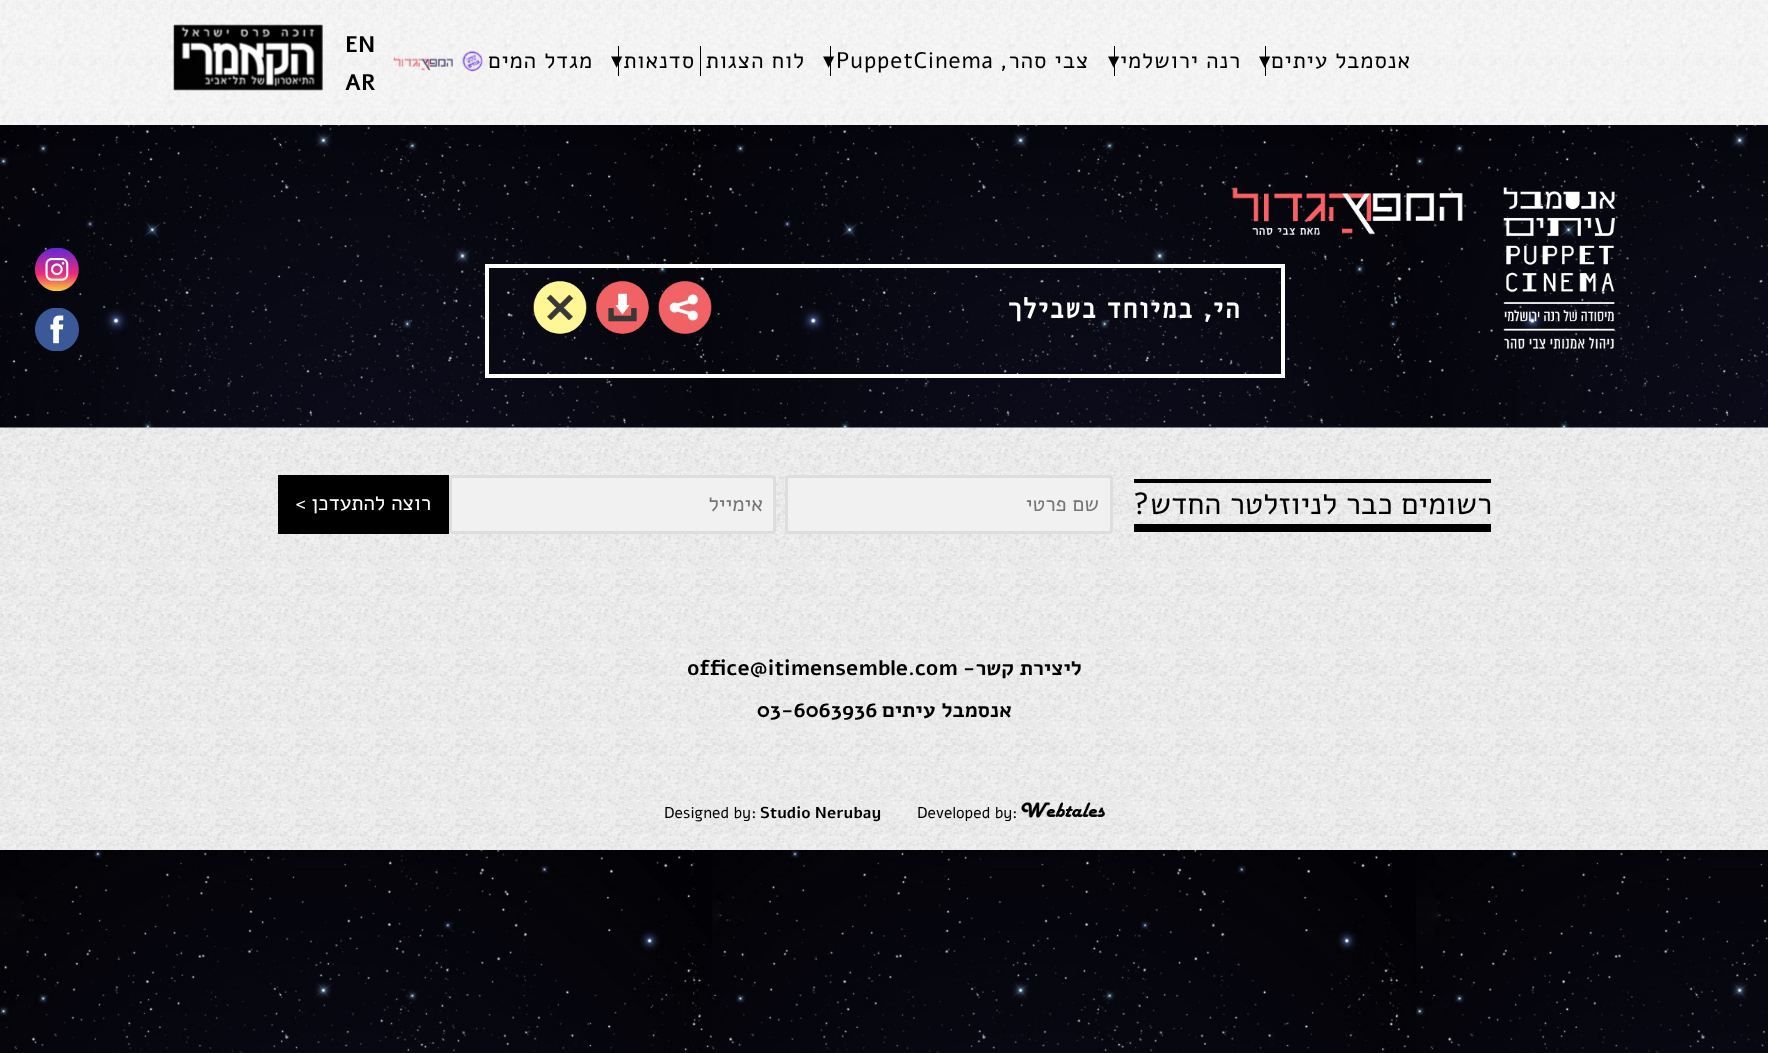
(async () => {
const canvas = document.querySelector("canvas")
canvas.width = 1768
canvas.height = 1053
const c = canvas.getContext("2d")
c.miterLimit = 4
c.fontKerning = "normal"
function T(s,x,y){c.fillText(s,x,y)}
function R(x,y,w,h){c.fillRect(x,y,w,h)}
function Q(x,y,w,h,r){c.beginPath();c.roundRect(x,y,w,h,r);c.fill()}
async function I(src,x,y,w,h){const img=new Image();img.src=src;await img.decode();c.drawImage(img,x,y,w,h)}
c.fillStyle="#fff"
R(0,0,1768,1053)
await I("1.png",0,125,1768,928)
c.fillStyle="#0000001a"
c.filter="blur(9.5px)"
c.beginPath()
c.rect(0,6,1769,125)
c.fill()
c.filter="none"
await I("2.png",0,0,1768,125)
c.letterSpacing="0.9px"
c.direction="rtl"
c.font="22.5px Alef"
c.fillStyle="#000"
T("אנסמבל עיתים",1411,68)
R(1265,46,1,30)
c.direction="ltr"
c.font="22.5px DejaVu Sans"
T("▾",1259,68)
c.direction="rtl"
c.font="22.5px Alef"
T("רנה ירושלמי",1241,68)
R(1114,46,1,30)
c.direction="ltr"
c.font="22.5px DejaVu Sans"
T("▾",1108,68)
c.direction="rtl"
c.font="22.5px Alef"
T("צבי סהר,",1089,68)
c.direction="ltr"
T("PuppetCinema",836,68)
R(830,46,1,30)
c.font="22.5px DejaVu Sans"
T("▾",823,68)
c.direction="rtl"
c.font="22.5px Alef"
T("לוח הצגות",805,68)
R(700,46,1,30)
T("סדנאות",695,68)
R(618,46,1,30)
c.direction="ltr"
c.font="22.5px DejaVu Sans"
T("▾",611,68)
c.direction="rtl"
c.font="22.5px Alef"
T("מגדל המים",593,68)
await I("3.png",462,50,21,22)
await I("4.png",393,56,60,15)
c.letterSpacing="0px"
c.direction="ltr"
c.font="bold 22.5px Alef"
T("EN",345,52)
T("AR",345,90)
await I("5.png",173,24,150,67)
await I("6.png",1503,187,112,162)
await I("7.png",1232,187,231,48)
c.strokeStyle="#fff"
c.lineWidth=4
c.strokeRect(487,266,796,110)
c.direction="rtl"
c.font="bold 30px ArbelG"
c.fillStyle="#fff"
T("הי, במיוחד בשבילך",1241,318)
await I("8.png",658,281,54,53)
await I("9.png",596,281,53,53)
await I("10.png",533,281,54,53)
await I("11.png",35,248,44,43)
await I("12.png",35,308,44,43)
await I("13.png",0,427,1768,423)
c.font="30.5px Alef"
c.fillStyle="#000"
T("רשומים כבר לניוזלטר החדש?",1492,514)
R(1134,479,357,4)
R(1134,524,357,8)
c.fillStyle="#f1f1f1"
Q(785,475,328,59,4)
c.beginPath()
c.roundRect(786.5,476.5,325,56,2.5)
c.strokeStyle="#3333331a"
c.lineWidth=3
c.stroke()
c.font="21px Alef"
c.fillStyle="#757575"
T("שם פרטי",1099,511)
c.fillStyle="#f1f1f1"
Q(449,475,327,59,4)
c.beginPath()
c.roundRect(450.5,476.5,324,56,2.5)
c.stroke()
c.fillStyle="#757575"
T("אימייל",763,511)
c.fillStyle="#000"
R(278,475,171,59)
c.fillStyle="#fff"
T("רוצה להתעדכן >",431,510)
c.font="bold 21px Alef"
c.fillStyle="#000"
T("ליצירת קשר-",1082,675)
c.direction="ltr"
T("office@itimensemble.com",687,675)
c.direction="rtl"
T("אנסמבל עיתים",1012,717)
c.direction="ltr"
T("03-6063936",757,717)
await I("14.png",1021,802,84,16)
c.font="15.75px Alef"
T("Developed by:",917,818)
c.font="bold 15.75px Alef"
T("Studio Nerubay",760,818)
c.font="15.75px Alef"
T("Designed by:",664,818)
})()
